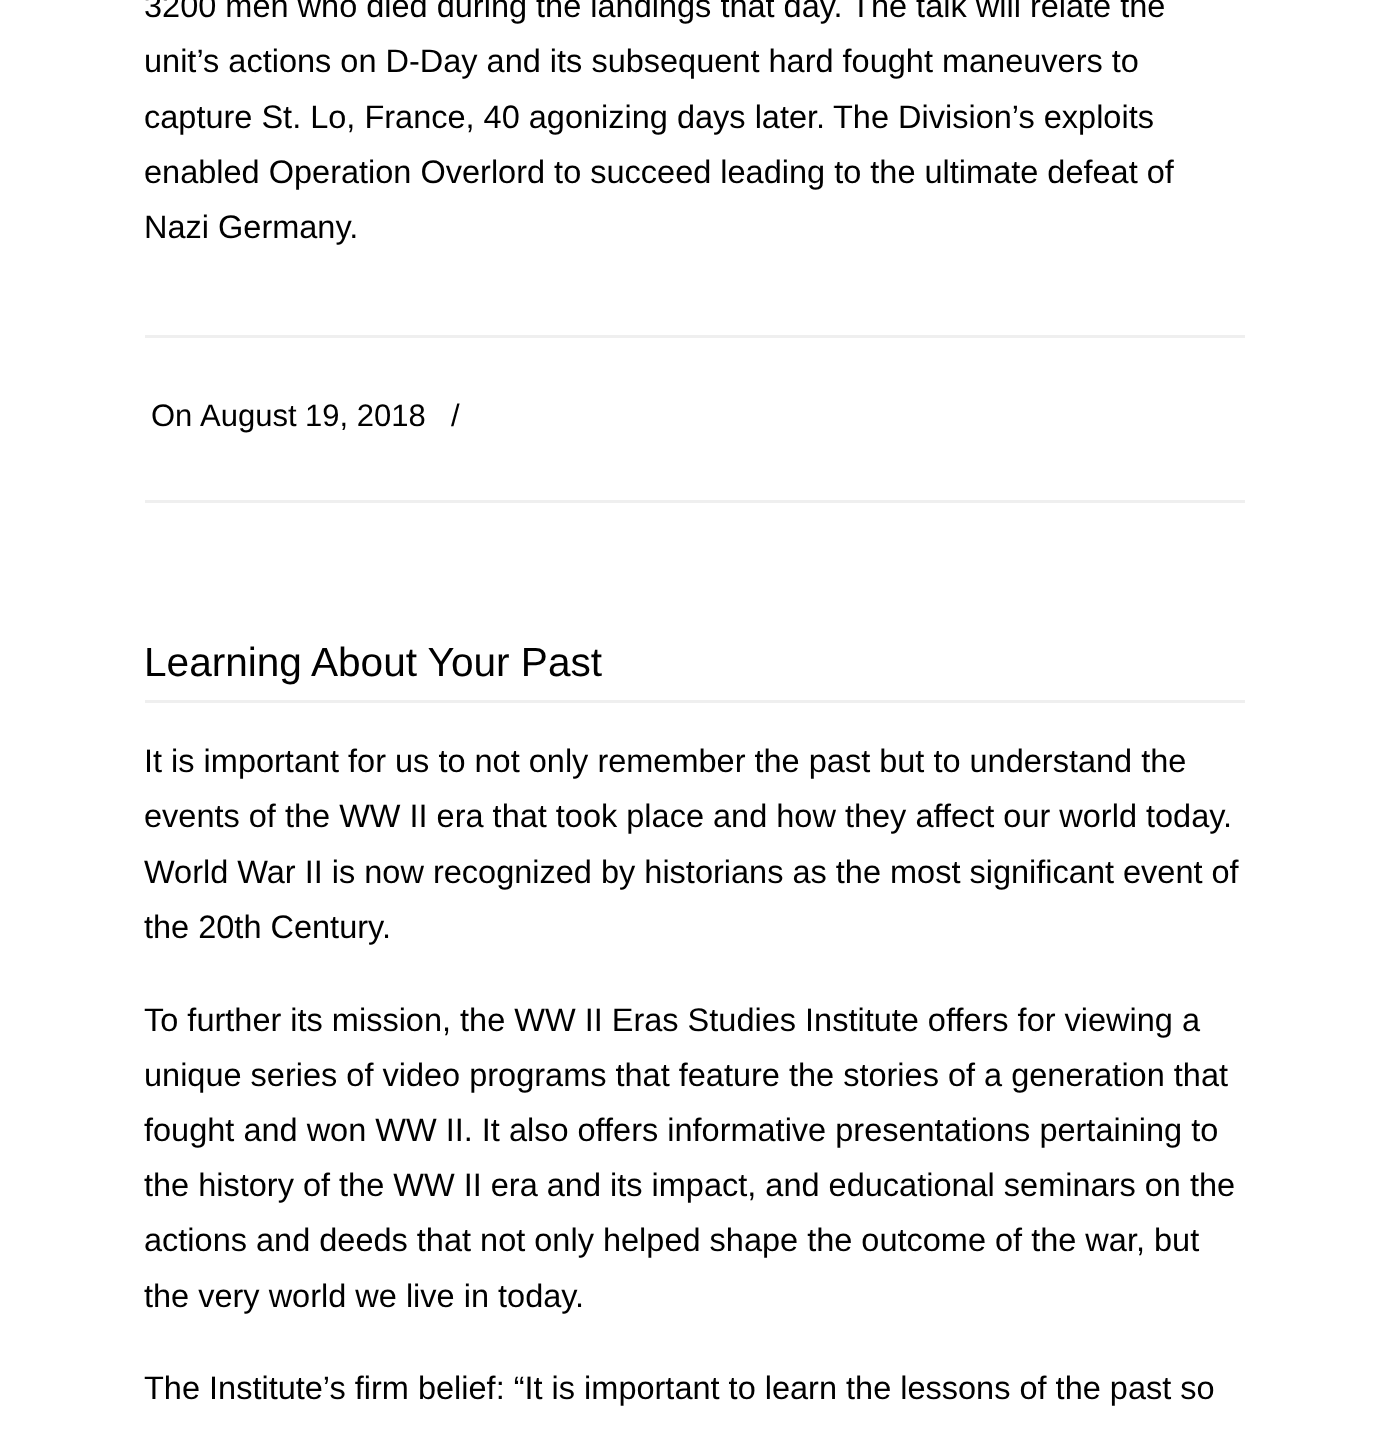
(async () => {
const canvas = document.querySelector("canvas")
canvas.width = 1387
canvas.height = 1429
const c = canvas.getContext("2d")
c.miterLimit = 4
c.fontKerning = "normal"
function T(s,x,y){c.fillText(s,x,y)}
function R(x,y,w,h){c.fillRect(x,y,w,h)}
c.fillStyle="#fff"
R(0,0,1387,1429)
c.font="32.5px Liberation Sans"
c.fillStyle="#000"
T("3200 men who died during the landings that day. The talk will relate the",144,17)
T("unit’s actions on D-Day and its subsequent hard fought maneuvers to",144,72)
T("capture St. Lo, France, 40 agonizing days later.",144,128)
T("The Division’s exploits",833,128)
T("enabled Operation Overlord to succeed leading to the ultimate defeat of",144,183)
T("Nazi Germany.",144,238)
c.fillStyle="#efefef"
R(145,335,1100,3)
c.font="31px Liberation Sans"
c.fillStyle="#000"
T("On",151,426)
T("August 19, 2018",200,426)
T("/",451,426)
c.fillStyle="#efefef"
R(145,500,1100,3)
R(145,700,1100,3)
c.font="40.6px Liberation Sans"
c.fillStyle="#000"
T("Learning About Your Past",144,676)
c.font="32.5px Liberation Sans"
T("It is important for us to not only remember the past but to understand the",144,772)
T("events of the WW II era that took place and how they affect our world today.",144,827)
T("World War II is now recognized by historians as the most significant event of",144,883)
T("the 20th Century.",144,938)
T("To further its mission, the WW II Eras Studies Institute offers for viewing a",144,1031)
T("unique series of video programs that feature the stories of a generation that",144,1086)
T("fought and won WW II. It also offers informative presentations pertaining to",144,1141)
T("the history of the WW II era and its impact, and educational seminars on the",144,1196)
T("actions and deeds that not only helped shape the outcome of the war, but",144,1251)
T("the very world we live in today.",144,1307)
T("The Institute’s firm belief: “It is important to learn the lessons of the past so",144,1399)
})()
